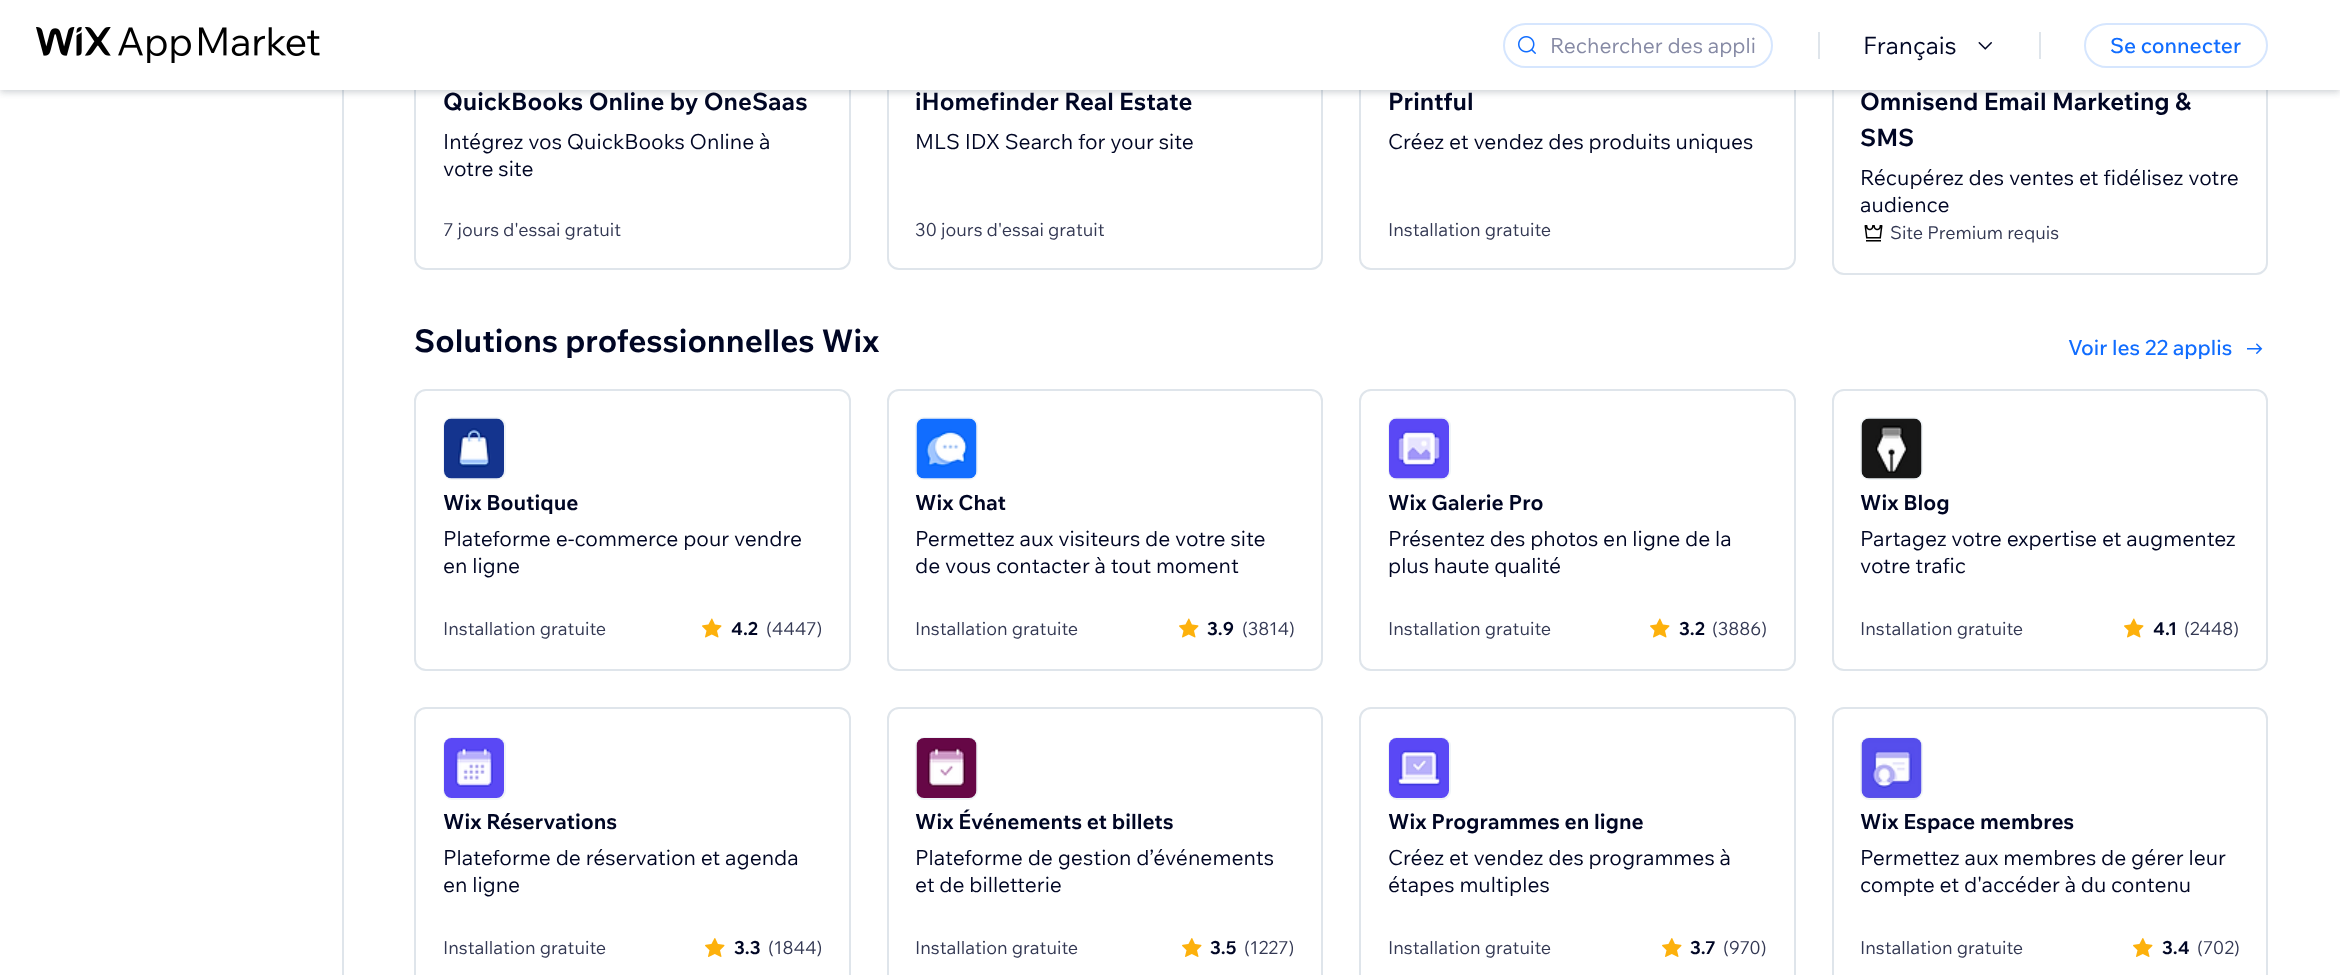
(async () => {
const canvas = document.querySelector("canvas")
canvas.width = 2340
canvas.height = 975
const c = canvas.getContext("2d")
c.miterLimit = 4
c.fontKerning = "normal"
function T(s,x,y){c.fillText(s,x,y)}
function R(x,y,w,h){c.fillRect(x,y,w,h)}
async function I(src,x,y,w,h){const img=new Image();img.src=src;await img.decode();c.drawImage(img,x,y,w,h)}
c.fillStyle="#fff"
R(0,0,2340,975)
c.fillStyle="#dfe5eb"
R(342,90,2,885)
c.beginPath()
c.roundRect(415,-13,435,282,11)
c.strokeStyle="#dfe5eb"
c.lineWidth=2
c.stroke()
c.beginPath()
c.roundRect(888,-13,434,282,11)
c.stroke()
c.beginPath()
c.roundRect(1360,-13,435,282,11)
c.stroke()
c.beginPath()
c.roundRect(1833,-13,434,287,11)
c.stroke()
c.fillStyle="#162d3d1f"
c.filter="blur(4.5px)"
c.beginPath()
c.rect(0,0,2340,90)
c.fill()
c.filter="none"
c.filter="blur(3px)"
c.beginPath()
c.rect(0,3,2340,90)
c.fill()
c.filter="none"
c.fillStyle="#fff"
R(0,0,2340,90)
await I("1.png",36,27,284,36)
c.beginPath()
c.roundRect(1504,24,268,43,21.5)
c.strokeStyle="#d6e6fe"
c.stroke()
await I("2.png",1518,36,18,18)
c.font="21px Wix Madefor Text"
c.fillStyle="#868aa5"
T("Rechercher des appli",1550,53)
c.fillStyle="#dfe5eb"
R(1818,32,2,27)
c.font="24px Wix Madefor Text"
c.fillStyle="#000624"
T("Français",1863,54)
await I("3.png",1978,42,14,8)
c.fillStyle="#dfe5eb"
R(2039,32,2,27)
c.beginPath()
c.roundRect(2085,24,182,43,21.5)
c.stroke()
c.font="500 21px Wix Madefor Text"
c.fillStyle="#116dff"
T("Se connecter",2110,53)
c.font="bold 24px Wix Madefor Text"
c.fillStyle="#000624"
T("QuickBooks Online by OneSaas",443,110)
c.font="21px Wix Madefor Text"
T("Intégrez vos QuickBooks Online à",443,149)
T("votre site",443,176)
c.font="18px Wix Madefor Text"
c.fillStyle="#333853"
T("7 jours d'essai gratuit",443,236)
c.font="bold 24px Wix Madefor Text"
c.fillStyle="#000624"
T("iHomefinder Real Estate",915,110)
c.font="21px Wix Madefor Text"
T("MLS IDX Search for your site",915,149)
c.font="18px Wix Madefor Text"
c.fillStyle="#333853"
T("30 jours d'essai gratuit",915,236)
c.font="bold 24px Wix Madefor Text"
c.fillStyle="#000624"
T("Printful",1388,110)
c.font="21px Wix Madefor Text"
T("Créez et vendez des produits uniques",1388,149)
c.font="18px Wix Madefor Text"
c.fillStyle="#333853"
T("Installation gratuite",1388,236)
c.font="bold 24px Wix Madefor Text"
c.fillStyle="#000624"
T("Omnisend Email Marketing &",1860,110)
T("SMS",1860,146)
c.font="21px Wix Madefor Text"
T("Récupérez des ventes et fidélisez votre",1860,185)
T("audience",1860,212)
await I("4.png",1864,225,19,17)
c.font="18px Wix Madefor Text"
c.fillStyle="#333853"
T("Site Premium requis",1890,239)
c.font="bold 31.5px Wix Madefor Text"
c.fillStyle="#000624"
T("Solutions professionnelles Wix",414,352)
c.font="500 21px Wix Madefor Text"
c.fillStyle="#116dff"
T("Voir les 22 applis",2068,355)
await I("5.png",2247,343,16,11)
c.beginPath()
c.roundRect(415,390,435,280,11)
c.strokeStyle="#dfe5eb"
c.stroke()
c.beginPath()
c.roundRect(444,418,61,61,8)
c.strokeStyle="#f0f4f7"
c.stroke()
await I("6.png",444,418,60,61)
c.font="bold 21px Wix Madefor Text"
c.fillStyle="#000624"
T("Wix Boutique",443,510)
c.font="21px Wix Madefor Text"
T("Plateforme e-commerce pour vendre",443,546)
T("en ligne",443,573)
c.font="18px Wix Madefor Text"
c.fillStyle="#333853"
T("Installation gratuite",443,635)
await I("7.png",702,618,20,20)
c.font="bold 18px Wix Madefor Text"
c.fillStyle="#000624"
T("4.2",731,635)
c.font="18px Wix Madefor Text"
c.fillStyle="#333853"
T("(4447)",766,635)
c.beginPath()
c.roundRect(888,390,434,280,11)
c.strokeStyle="#dfe5eb"
c.stroke()
c.beginPath()
c.roundRect(916,418,61,61,8)
c.strokeStyle="#f0f4f7"
c.stroke()
await I("8.png",916,418,61,61)
c.font="bold 21px Wix Madefor Text"
c.fillStyle="#000624"
T("Wix Chat",915,510)
c.font="21px Wix Madefor Text"
T("Permettez aux visiteurs de votre site",915,546)
T("de vous contacter à tout moment",915,573)
c.font="18px Wix Madefor Text"
c.fillStyle="#333853"
T("Installation gratuite",915,635)
await I("7.png",1179,618,20,20)
c.font="bold 18px Wix Madefor Text"
c.fillStyle="#000624"
T("3.9",1207,635)
c.font="18px Wix Madefor Text"
c.fillStyle="#333853"
T("(3814)",1242,635)
c.beginPath()
c.roundRect(1360,390,435,280,11)
c.strokeStyle="#dfe5eb"
c.stroke()
c.beginPath()
c.roundRect(1389,418,61,61,8)
c.strokeStyle="#f0f4f7"
c.stroke()
await I("9.png",1389,418,60,61)
c.font="bold 21px Wix Madefor Text"
c.fillStyle="#000624"
T("Wix Galerie Pro",1388,510)
c.font="21px Wix Madefor Text"
T("Présentez des photos en ligne de la",1388,546)
T("plus haute qualité",1388,573)
c.font="18px Wix Madefor Text"
c.fillStyle="#333853"
T("Installation gratuite",1388,635)
await I("7.png",1650,618,20,20)
c.font="bold 18px Wix Madefor Text"
c.fillStyle="#000624"
T("3.2",1679,635)
c.font="18px Wix Madefor Text"
c.fillStyle="#333853"
T("(3886)",1712,635)
c.beginPath()
c.roundRect(1833,390,434,280,11)
c.strokeStyle="#dfe5eb"
c.stroke()
c.beginPath()
c.roundRect(1861,418,61,61,8)
c.strokeStyle="#f0f4f7"
c.stroke()
await I("10.png",1861,418,61,61)
c.font="bold 21px Wix Madefor Text"
c.fillStyle="#000624"
T("Wix Blog",1860,510)
c.font="21px Wix Madefor Text"
T("Partagez votre expertise et augmentez",1860,546)
T("votre trafic",1860,573)
c.font="18px Wix Madefor Text"
c.fillStyle="#333853"
T("Installation gratuite",1860,635)
await I("7.png",2124,618,20,20)
c.font="bold 18px Wix Madefor Text"
c.fillStyle="#000624"
T("4.1",2153,635)
c.font="18px Wix Madefor Text"
c.fillStyle="#333853"
T("(2448)",2184,635)
c.beginPath()
c.roundRect(415,708,435,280,11)
c.strokeStyle="#dfe5eb"
c.stroke()
c.fillStyle="#f6f7f7"
c.beginPath()
c.roundRect(444,738,61,61,8)
c.fill()
c.strokeStyle="#f0f4f7"
c.stroke()
await I("11.png",444,738,60,60)
c.font="bold 21px Wix Madefor Text"
c.fillStyle="#000624"
T("Wix Réservations",443,829)
c.font="21px Wix Madefor Text"
T("Plateforme de réservation et agenda",443,865)
T("en ligne",443,892)
c.font="18px Wix Madefor Text"
c.fillStyle="#333853"
T("Installation gratuite",443,954)
await I("12.png",705,938,20,19)
c.font="bold 18px Wix Madefor Text"
c.fillStyle="#000624"
T("3.3",734,954)
c.font="18px Wix Madefor Text"
c.fillStyle="#333853"
T("(1844)",768,954)
c.beginPath()
c.roundRect(888,708,434,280,11)
c.strokeStyle="#dfe5eb"
c.stroke()
c.beginPath()
c.roundRect(916,738,61,61,8)
c.strokeStyle="#f0f4f7"
c.stroke()
await I("13.png",916,738,61,60)
c.font="bold 21px Wix Madefor Text"
c.fillStyle="#000624"
T("Wix Événements et billets",915,829)
c.font="21px Wix Madefor Text"
T("Plateforme de gestion d’événements",915,865)
T("et de billetterie",915,892)
c.font="18px Wix Madefor Text"
c.fillStyle="#333853"
T("Installation gratuite",915,954)
await I("12.png",1182,938,20,19)
c.font="bold 18px Wix Madefor Text"
c.fillStyle="#000624"
T("3.5",1210,954)
c.font="18px Wix Madefor Text"
c.fillStyle="#333853"
T("(1227)",1244,954)
c.beginPath()
c.roundRect(1360,708,435,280,11)
c.strokeStyle="#dfe5eb"
c.stroke()
c.fillStyle="#f6f7f7"
c.beginPath()
c.roundRect(1389,738,61,61,8)
c.fill()
c.strokeStyle="#f0f4f7"
c.stroke()
await I("14.png",1389,738,60,60)
c.font="bold 21px Wix Madefor Text"
c.fillStyle="#000624"
T("Wix Programmes en ligne",1388,829)
c.font="21px Wix Madefor Text"
T("Créez et vendez des programmes à",1388,865)
T("étapes multiples",1388,892)
c.font="18px Wix Madefor Text"
c.fillStyle="#333853"
T("Installation gratuite",1388,954)
await I("12.png",1662,938,20,19)
c.font="bold 18px Wix Madefor Text"
c.fillStyle="#000624"
T("3.7",1690,954)
c.font="18px Wix Madefor Text"
c.fillStyle="#333853"
T("(970)",1723,954)
c.beginPath()
c.roundRect(1833,708,434,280,11)
c.strokeStyle="#dfe5eb"
c.stroke()
c.beginPath()
c.roundRect(1861,738,61,61,8)
c.strokeStyle="#f0f4f7"
c.stroke()
await I("15.png",1861,738,61,60)
c.font="bold 21px Wix Madefor Text"
c.fillStyle="#000624"
T("Wix Espace membres",1860,829)
c.font="21px Wix Madefor Text"
T("Permettez aux membres de gérer leur",1860,865)
T("compte et d'accéder à du contenu",1860,892)
c.font="18px Wix Madefor Text"
c.fillStyle="#333853"
T("Installation gratuite",1860,954)
await I("12.png",2133,938,20,19)
c.font="bold 18px Wix Madefor Text"
c.fillStyle="#000624"
T("3.4",2162,954)
c.font="18px Wix Madefor Text"
c.fillStyle="#333853"
T("(702)",2197,954)
})()
